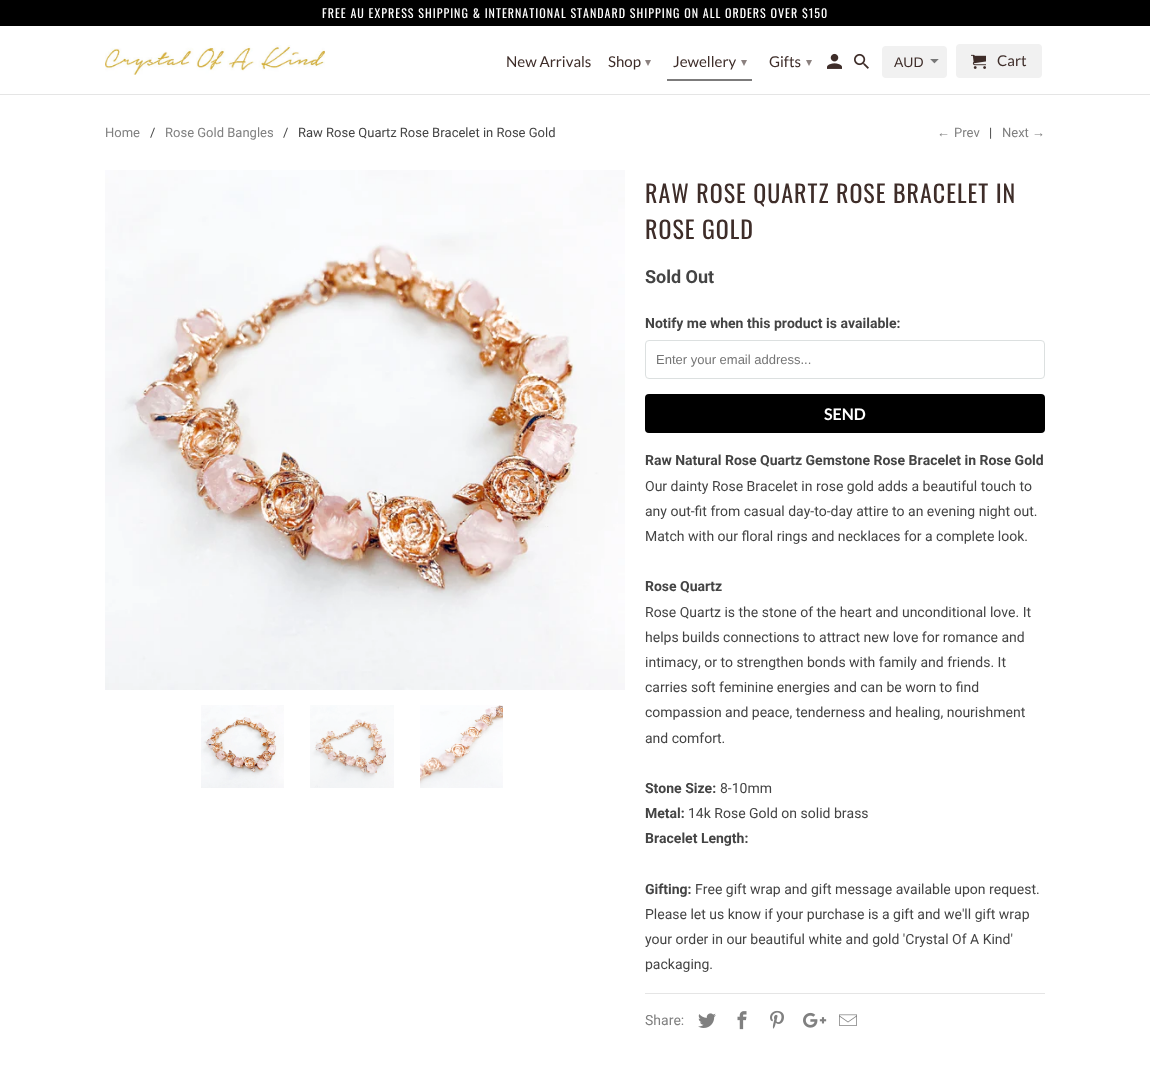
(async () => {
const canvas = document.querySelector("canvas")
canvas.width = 1150
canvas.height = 1068
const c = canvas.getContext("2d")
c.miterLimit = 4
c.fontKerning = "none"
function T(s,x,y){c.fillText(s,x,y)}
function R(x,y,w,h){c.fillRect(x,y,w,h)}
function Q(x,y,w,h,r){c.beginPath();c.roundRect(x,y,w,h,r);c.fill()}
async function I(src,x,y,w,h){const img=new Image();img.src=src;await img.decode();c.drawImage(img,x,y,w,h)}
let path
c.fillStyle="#fff"
R(0,0,1150,1068)
c.fillStyle="#e5e5e5"
R(0,94,1150,1)
c.fillStyle="#000"
R(0,0,1150,26)
c.letterSpacing="1px"
c.font="12px Oswald"
c.fillStyle="#fff"
T("FREE AU EXPRESS SHIPPING & INTERNATIONAL STANDARD SHIPPING ON ALL ORDERS OVER $150",322,18)
await I("1.png",105,45,220,30)
c.letterSpacing="0px"
c.font="15px Lato"
c.fillStyle="#3e2d29"
T("New Arrivals",506,67)
T("Shop",608,67)
c.font="12px DejaVu Sans"
c.fillStyle="#8b817f"
T("▾",645,66)
c.font="15px Lato"
c.fillStyle="#3e2d29"
T("Jewellery",673,67)
c.font="12px DejaVu Sans"
c.fillStyle="#8b817f"
T("▾",741,66)
c.fillStyle="#7c7b7b"
R(667,79,85,2)
c.font="15px Lato"
c.fillStyle="#3e2d29"
T("Gifts",769,67)
c.font="12px DejaVu Sans"
c.fillStyle="#8b817f"
T("▾",806,66)
await I("2.png",827,53,15,16)
await I("3.png",854,53,15,16)
c.fillStyle="#f1f1f1"
Q(882,46,65,32,4)
await I("4.png",930,59,9,5)
c.font="14px Liberation Sans"
c.fillStyle="#3e2d29"
T("AUD",894,67)
c.fillStyle="#f1f1f1"
Q(956,44,86,34,4)
await I("5.png",971,54,15,15)
c.font="15px Lato"
c.fillStyle="#3e2d29"
T("Cart",997,66)
c.font="13px Roboto"
c.fillStyle="#808080"
T("Home",105,137)
c.fillStyle="#444"
T("/",150,137)
c.fillStyle="#808080"
T("Rose Gold Bangles",165,137)
c.fillStyle="#444"
T("/",283,137)
T("Raw Rose Quartz Rose Bracelet in Rose Gold",298,137)
c.font="13px Liberation Serif"
c.fillStyle="#808080"
T("←",937,137)
c.font="13px Roboto"
T("Prev",954,137)
c.fillStyle="#444"
T("|",989,137)
c.fillStyle="#808080"
T("Next",1002,137)
c.font="13px Liberation Serif"
T("→",1032,137)
await I("6.png",105,170,520,520)
await I("7.png",201,705,83,83)
await I("8.png",310,705,84,83)
await I("9.png",420,705,83,83)
c.letterSpacing="1px"
c.font="24px Oswald"
c.fillStyle="#3e2d29"
T("RAW ROSE QUARTZ ROSE BRACELET IN",645,203)
T("ROSE GOLD",645,239)
c.letterSpacing="0px"
c.font="bold 18px Roboto"
c.fillStyle="#444"
T("Sold Out",645,283)
c.font="bold 14px Roboto"
T("Notify me when this product is available:",645,328)
c.beginPath()
c.roundRect(645.5,340.5,399,38,3.5)
c.strokeStyle="#dce0e0"
c.stroke()
c.font="13px Liberation Sans"
c.fillStyle="#757575"
T("Enter your email address...",656,364)
c.fillStyle="#000"
Q(645,394,400,39,4)
c.fillStyle="#0000001a"
path = new Path2D("M645 426v3c0 2 2 4 4 4h392c2 0 4-2 4-4v-3c0 2-2 4-4 4h-392c-2 0-4-2-4-4z")
c.fill(path)
c.font="bold 16px Lato"
c.fillStyle="#fff"
T("SEND",824,420)
c.font="bold 14px Roboto"
c.fillStyle="#444"
T("Raw Natural Rose Quartz Gemstone Rose Bracelet in Rose Gold",645,465)
c.font="14px Roboto"
T("Our dainty Rose Bracelet in rose gold adds a beautiful touch to",645,491)
T("any out-fit from casual day-to-day attire to an evening night out.",645,516)
T("Match with our floral rings and necklaces for a complete look.",645,541)
c.font="bold 14px Roboto"
T("Rose Quartz",645,591)
c.font="14px Roboto"
T("Rose Quartz is the stone of the heart and unconditional love. It",645,617)
T("helps builds connections to attract new love for romance and",645,642)
T("intimacy, or to strengthen bonds with family and friends. It",645,667)
T("carries soft feminine energies and can be worn to find",645,692)
T("compassion and peace, tenderness and healing, nourishment",645,717)
T("and comfort.",645,743)
c.font="bold 14px Roboto"
T("Stone Size:",645,793)
c.font="14px Roboto"
T("8-10mm",720,793)
c.font="bold 14px Roboto"
T("Metal:",645,818)
c.font="14px Roboto"
T("14k Rose Gold on solid brass",688,818)
c.font="bold 14px Roboto"
T("Bracelet Length:",645,843)
T("Gifting:",645,894)
c.font="14px Roboto"
T("Free gift wrap and gift message available upon request.",695,894)
T("Please let us know if your purchase is a gift and we'll gift wrap",645,919)
T("your order in our beautiful white and gold 'Crystal Of A Kind'",645,944)
T("packaging.",645,969)
c.fillStyle="#e5e5e5"
R(645,993,400,1)
c.fillStyle="#808080"
T("Share:",645,1025)
await I("10.png",698,1013,18,15)
await I("11.png",737,1011,10,19)
await I("12.png",770,1010,14,19)
await I("13.png",803,1012,24,16)
await I("14.png",839,1014,18,12)
})()
